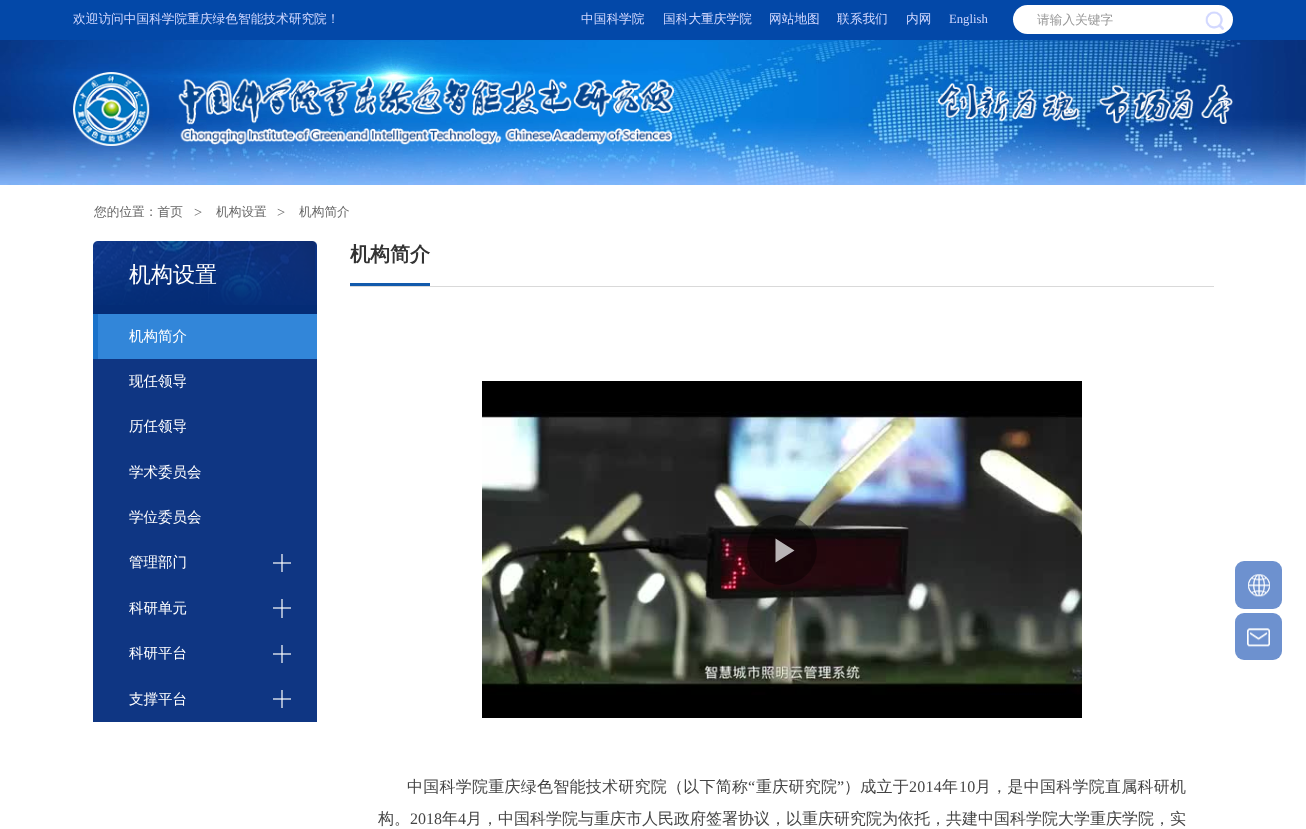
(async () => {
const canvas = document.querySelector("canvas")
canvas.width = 1306
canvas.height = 829
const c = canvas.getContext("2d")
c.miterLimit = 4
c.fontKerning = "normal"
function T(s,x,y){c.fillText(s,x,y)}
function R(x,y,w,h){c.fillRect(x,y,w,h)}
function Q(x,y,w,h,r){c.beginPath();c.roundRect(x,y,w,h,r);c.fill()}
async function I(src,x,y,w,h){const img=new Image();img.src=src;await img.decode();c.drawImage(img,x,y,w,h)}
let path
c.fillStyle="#fff"
R(0,0,1306,829)
c.fillStyle="#0348a8"
R(0,0,1306,40)
c.font="500 12.7px WenQuanYi Zen Hei"
c.fillStyle="#d2d8ff"
T("欢迎访问中国科学院重庆绿色智能技术研究院！",73,23)
T("中国科学院",581,23)
T("国科大重庆学院",663,23)
T("网站地图",769,23)
T("联系我们",837,23)
T("内网",906,23)
c.font="12.7px Liberation Serif"
T("English",949,23)
c.fillStyle="#fff"
Q(1013,5,220,29,14.5)
c.font="500 12.7px WenQuanYi Zen Hei"
c.fillStyle="#999"
T("请输入关键字",1037,24)
await I("1.png",1205,11,19,19)
await I("2.png",0,40,1306,145)
await I("3.png",73,72,601,74)
await I("4.png",938,83,295,41)
c.fillStyle="#666"
T("您的位置：首页",94,216)
c.font="14.5px Liberation Serif"
T(">",194,217)
c.font="500 12.7px WenQuanYi Zen Hei"
T("机构设置",216,216)
c.font="14.5px Liberation Serif"
T(">",277,217)
c.font="500 12.7px WenQuanYi Zen Hei"
T("机构简介",299,216)
await I("5.png",93,241,224,64)
c.font="500 22px WenQuanYi Zen Hei"
c.fillStyle="#fff"
T("机构设置",129,282)
c.fillStyle="#042c76"
R(93,305,224,9)
c.fillStyle="#1a72ca"
R(93,314,5,45)
c.fillStyle="#3286d9"
R(98,314,219,45)
c.font="500 14.5px WenQuanYi Zen Hei"
c.fillStyle="#fff"
T("机构简介",129,341)
c.fillStyle="#0f3683"
R(93,359,224,363)
c.fillStyle="#fff"
T("现任领导",129,386)
T("历任领导",129,431)
T("学术委员会",129,477)
T("学位委员会",129,522)
c.fillStyle="#9fafcd"
R(281,554,2,18)
c.fillStyle="#fff"
T("管理部门",129,567)
c.fillStyle="#9fafcd"
R(273,562,18,2)
c.fillStyle="#d9dfeb"
R(281,562,2,2)
c.fillStyle="#9fafcd"
R(281,599,2,19)
c.fillStyle="#fff"
T("科研单元",129,613)
c.fillStyle="#9fafcd"
R(273,607,18,2)
c.fillStyle="#d9dfeb"
R(281,607,2,2)
c.fillStyle="#9fafcd"
R(281,645,2,18)
c.fillStyle="#fff"
T("科研平台",129,658)
c.fillStyle="#9fafcd"
R(273,653,18,2)
c.fillStyle="#d9dfeb"
R(281,653,2,2)
c.fillStyle="#9fafcd"
R(281,690,2,18)
c.fillStyle="#fff"
T("支撑平台",129,704)
c.fillStyle="#9fafcd"
R(273,698,18,2)
c.fillStyle="#d9dfeb"
R(281,698,2,2)
c.fillStyle="#d9d9d9"
R(350,286,864,1)
c.fillStyle="#125aac"
R(350,283,80,3)
c.font="bold 20px WenQuanYi Zen Hei"
c.fillStyle="#333"
T("机构简介",350,261)
c.fillStyle="#000"
R(482,381,600,337)
await I("6.png",482,411,600,284)
c.fillStyle="#00000061"
c.beginPath()
c.arc(782,550,35,0,7)
c.fill()
c.fillStyle="#ffffffb3"
path = new Path2D("M785 544.5l9.5 6l-9.5 6zm-9.5-6l9.5 6v12l-9.5 6z")
c.fill(path)
c.letterSpacing="0.25px"
c.font="500 16px WenQuanYi Zen Hei"
c.fillStyle="#444"
T("中国科学院重庆绿色智能技术研究院（以下简称",407,792)
c.font="16px Liberation Serif"
T("“",748,792)
c.font="500 16px WenQuanYi Zen Hei"
T("重庆研究院",756,792)
c.font="16px Liberation Serif"
T("”",837,792)
c.font="500 16px WenQuanYi Zen Hei"
T("）成立于",844,792)
c.font="16px Liberation Serif"
T("2014",909,792)
c.font="500 16px WenQuanYi Zen Hei"
T("年",942,792)
c.font="16px Liberation Serif"
T("10",959,792)
c.font="500 16px WenQuanYi Zen Hei"
T("月，是中国科学院直属科研机",975,792)
c.letterSpacing="0px"
T("构。",378,824)
c.font="16px Liberation Serif"
T("2018",410,824)
c.font="500 16px WenQuanYi Zen Hei"
T("年",442,824)
c.font="16px Liberation Serif"
T("4",458,824)
c.font="500 16px WenQuanYi Zen Hei"
T("月，中国科学院与重庆市人民政府签署协议，以重庆研究院为依托，共建中国科学院大学重庆学院，实",466,824)
c.fillStyle="#6d91cf"
Q(1235,561,47,48,9)
await I("7.png",1248,574,22,23)
Q(1235,613,47,47,9)
await I("8.png",1247,628,23,19)
})()
